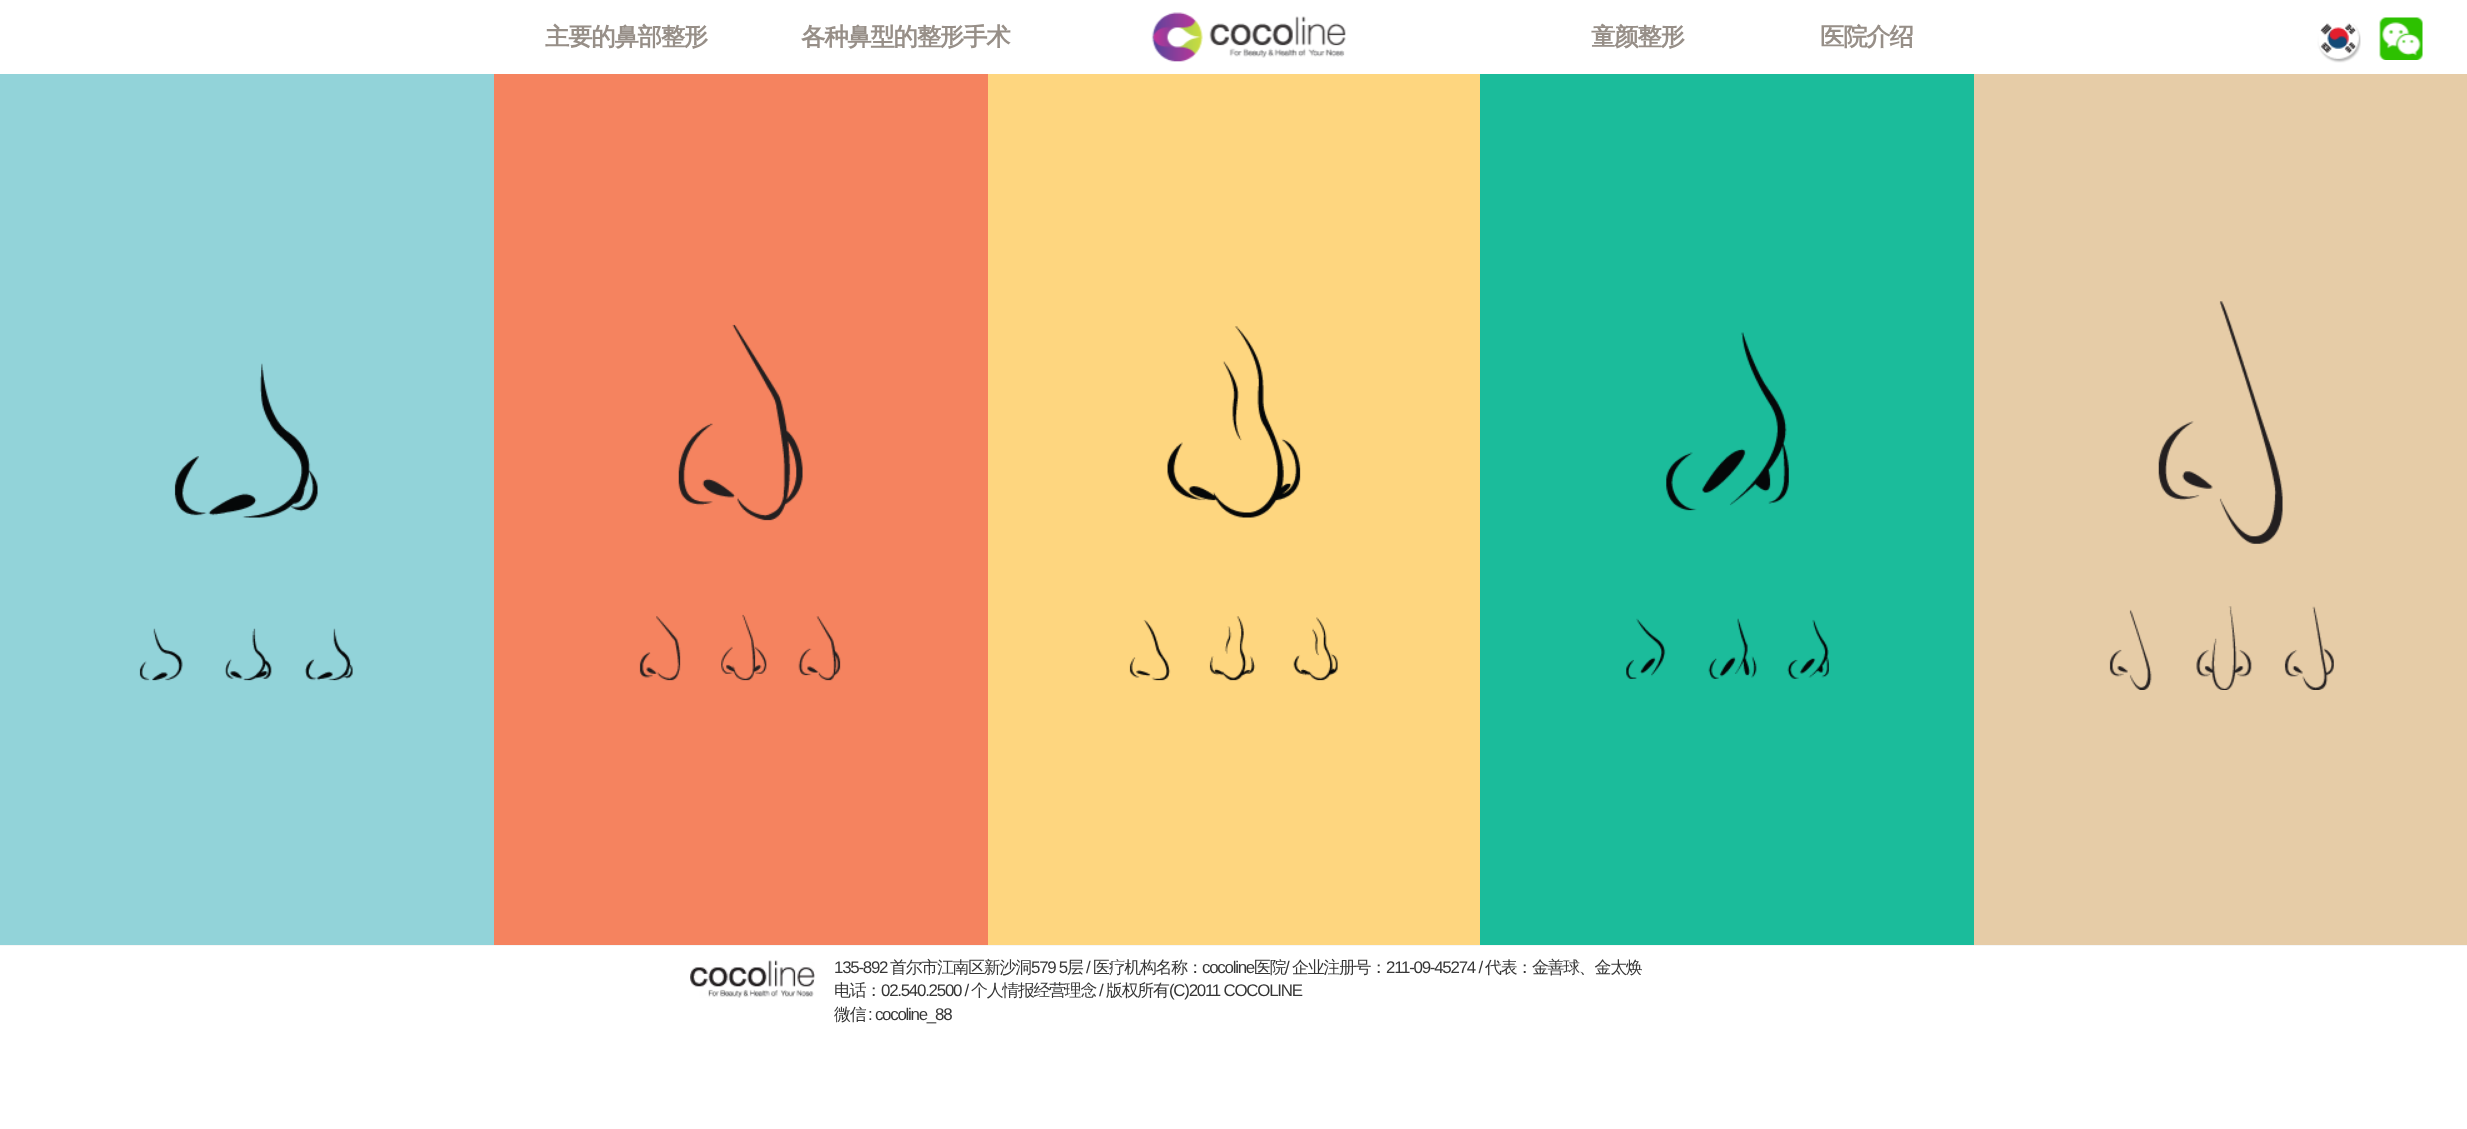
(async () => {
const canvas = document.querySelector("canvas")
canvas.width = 2467
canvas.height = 1129
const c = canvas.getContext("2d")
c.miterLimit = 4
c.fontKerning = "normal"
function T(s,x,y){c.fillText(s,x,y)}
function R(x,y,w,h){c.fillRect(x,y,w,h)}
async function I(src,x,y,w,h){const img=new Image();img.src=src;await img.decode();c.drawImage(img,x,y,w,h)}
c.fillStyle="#fff"
R(0,0,2467,1129)
c.letterSpacing="-1.25px"
c.font="bold 24.4px WenQuanYi Zen Hei"
c.fillStyle="#978f88"
T("主要的鼻部整形",545,45)
T("各种鼻型的整形手术",801,45)
await I("1.png",1151,12,195,50)
T("童颜整形",1591,45)
T("医院介绍",1820,45)
await I("2.png",2317,23,44,40)
await I("3.png",2379,17,44,43)
c.fillStyle="#92d3d9"
R(0,74,494,871)
await I("4.png",174,363,144,155)
await I("5.png",139,628,214,53)
c.fillStyle="#f5835f"
R(494,74,494,871)
await I("6.png",678,324,125,197)
await I("7.png",639,614,202,67)
c.fillStyle="#fed67f"
R(988,74,492,871)
await I("8.png",1167,326,134,192)
await I("9.png",1129,616,209,65)
c.fillStyle="#1bbc9b"
R(1480,74,494,871)
await I("10.png",1666,332,123,179)
await I("11.png",1626,618,203,61)
c.fillStyle="#e6cca7"
R(1974,74,493,871)
await I("12.png",2158,301,125,243)
await I("13.png",2109,606,225,84)
c.fillStyle="#f6f6f6"
R(0,945,2467,1)
await I("14.png",690,960,125,38)
c.font="16.9px Liberation Sans"
c.fillStyle="#363636"
T("135-892",834,973)
c.font="500 16.9px WenQuanYi Zen Hei"
T("首尔市江南区新沙洞",890,973)
c.font="16.9px Liberation Sans"
T("579 5",1031,973)
c.font="500 16.9px WenQuanYi Zen Hei"
T("层",1067,973)
c.font="16.9px Liberation Sans"
T("/",1086,973)
c.font="500 16.9px WenQuanYi Zen Hei"
T("医疗机构名称：",1093,973)
c.font="16.9px Liberation Sans"
T("cocoline",1202,973)
c.font="500 16.9px WenQuanYi Zen Hei"
T("医院",1254,973)
c.font="16.9px Liberation Sans"
T("/",1285,973)
c.font="500 16.9px WenQuanYi Zen Hei"
T("企业注册号：",1292,973)
c.font="16.9px Liberation Sans"
T("211-09-45274 /",1386,973)
c.font="500 16.9px WenQuanYi Zen Hei"
T("代表：金善球、金太焕",1485,973)
T("电话：",834,996)
c.font="16.9px Liberation Sans"
T("02.540.2500 /",881,996)
c.font="500 16.9px WenQuanYi Zen Hei"
T("个人情报经营理念",971,996)
c.font="16.9px Liberation Sans"
T("/",1099,996)
c.font="500 16.9px WenQuanYi Zen Hei"
T("版权所有",1106,996)
c.font="16.9px Liberation Sans"
T("(C)2011 COCOLINE",1169,996)
c.font="500 16.9px WenQuanYi Zen Hei"
T("微信",834,1020)
c.font="16.9px Liberation Sans"
T(": cocoline_88",868,1020)
})()
